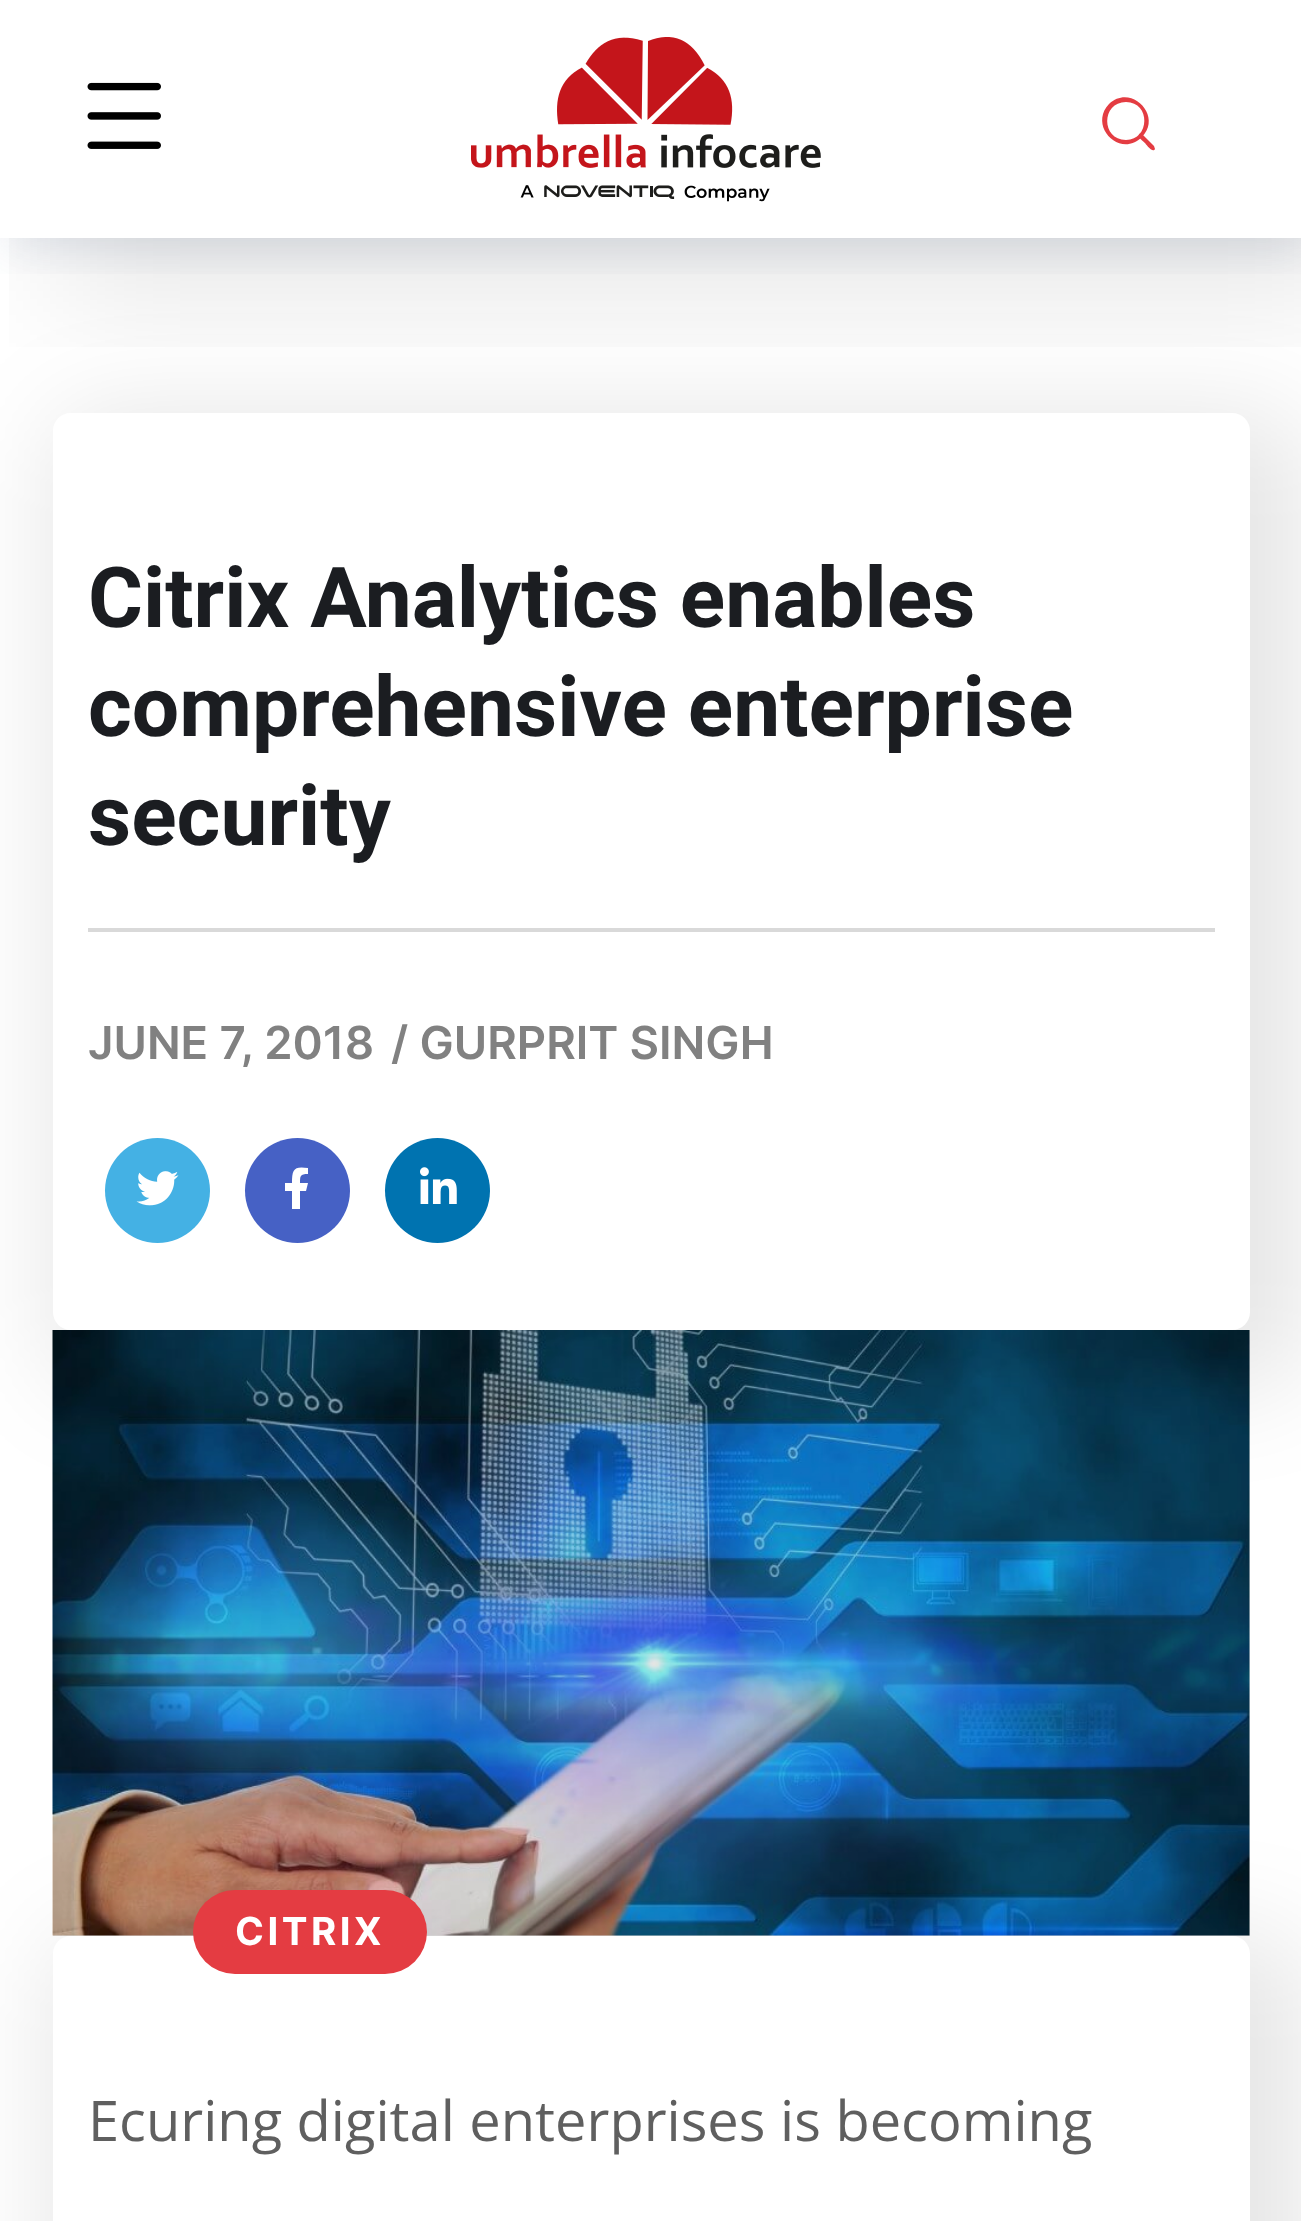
(async () => {
const canvas = document.querySelector("canvas")
canvas.width = 1301
canvas.height = 2221
const c = canvas.getContext("2d")
c.miterLimit = 4
c.fontKerning = "normal"
function T(s,x,y){c.fillText(s,x,y)}
function R(x,y,w,h){c.fillRect(x,y,w,h)}
function Q(x,y,w,h,r){c.beginPath();c.roundRect(x,y,w,h,r);c.fill()}
async function I(src,x,y,w,h){const img=new Image();img.src=src;await img.decode();c.drawImage(img,x,y,w,h)}
let path
c.fillStyle="#fff"
R(0,0,1301,2221)
c.save()
c.beginPath()
c.rect(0,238,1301,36)
c.clip()
c.fillStyle="#2a437126"
c.filter="blur(26px)"
c.beginPath()
c.rect(7,7,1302,238)
c.fill()
c.filter="none"
c.restore()
c.save()
c.beginPath()
c.rect(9,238,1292,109)
c.clip()
c.fillStyle="#0000001a"
c.filter="blur(66.5px)"
c.beginPath()
c.rect(53,53,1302,238)
c.fill()
c.filter="none"
c.restore()
await I("1.png",87,82,74,67)
await I("2.png",471,37,350,165)
c.fillStyle="#e43c42"
path = new Path2D("M1109 104c22-21 54 12 33 33c-22 22-54-11-33-33zm17 36c24 0 25-38 0-38c-25 0-25 38 0 38zm28 6l1 3c-2 5-10-6-10-6c-1-1-8-6-6-9c1-1 2-1 3 0z")
c.fill(path)
c.save()
path = new Path2D("M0 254h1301v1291h-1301zm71 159h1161c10 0 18 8 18 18v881c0 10-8 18-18 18h-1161c-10 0-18-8-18-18v-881c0-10 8-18 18-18z")
c.clip(path,"evenodd")
c.fillStyle="#0000001a"
c.filter="blur(52.5px)"
c.beginPath()
c.roundRect(53,413,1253,973,46)
c.fill()
c.filter="none"
c.restore()
c.font="bold 84px Roboto"
c.fillStyle="#1b1d21"
T("Citrix Analytics enables",88,627)
T("comprehensive enterprise",88,736)
T("security",88,845)
c.fillStyle="#d9d9d9"
R(88,928,1127,4)
c.font="600 45.5px Inter"
c.fillStyle="#818181"
T("JUNE 7, 2018",88,1059)
T("/ GURPRIT SINGH",391,1059)
c.fillStyle="#44b1e4"
c.beginPath()
c.arc(157.5,1190.5,52.5,0,7)
c.fill()
await I("3.png",136,1171,43,35)
c.fillStyle="#4661c5"
c.beginPath()
c.arc(297.5,1190.5,52.5,0,7)
c.fill()
c.fillStyle="#fff"
path = new Path2D("M306 1191h-6v18h-8v-18h-7v-8h7c0-14 2-17 16-15v6c-8 0-8 2-8 9h8z")
c.fill(path)
c.fillStyle="#0073b0"
c.beginPath()
c.arc(437.5,1190.5,52.5,0,7)
c.fill()
await I("4.png",420,1167,37,37)
c.save()
path = new Path2D("M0 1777h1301v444h-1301zm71 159h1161c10 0 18 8 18 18v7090c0 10-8 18-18 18h-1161c-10 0-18-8-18-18v-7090c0-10 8-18 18-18z")
c.clip(path,"evenodd")
c.fillStyle="#0000001a"
c.filter="blur(52.5px)"
c.beginPath()
c.roundRect(53,1936,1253,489,46)
c.fill()
c.filter="none"
c.restore()
await I("5.png",52,1330,1198,606)
c.fillStyle="#0000001a"
R(53,1330,1197,606)
c.fillStyle="#e43c42"
Q(193,1890,234,84,42)
c.letterSpacing="3.5px"
c.font="bold 38.5px Inter"
c.fillStyle="#fff"
T("CITRIX",235,1945)
c.letterSpacing="0px"
c.font="56px Open Sans"
c.fillStyle="#5f5f5f"
T("Ecuring digital enterprises is becoming",88,2141)
})()
